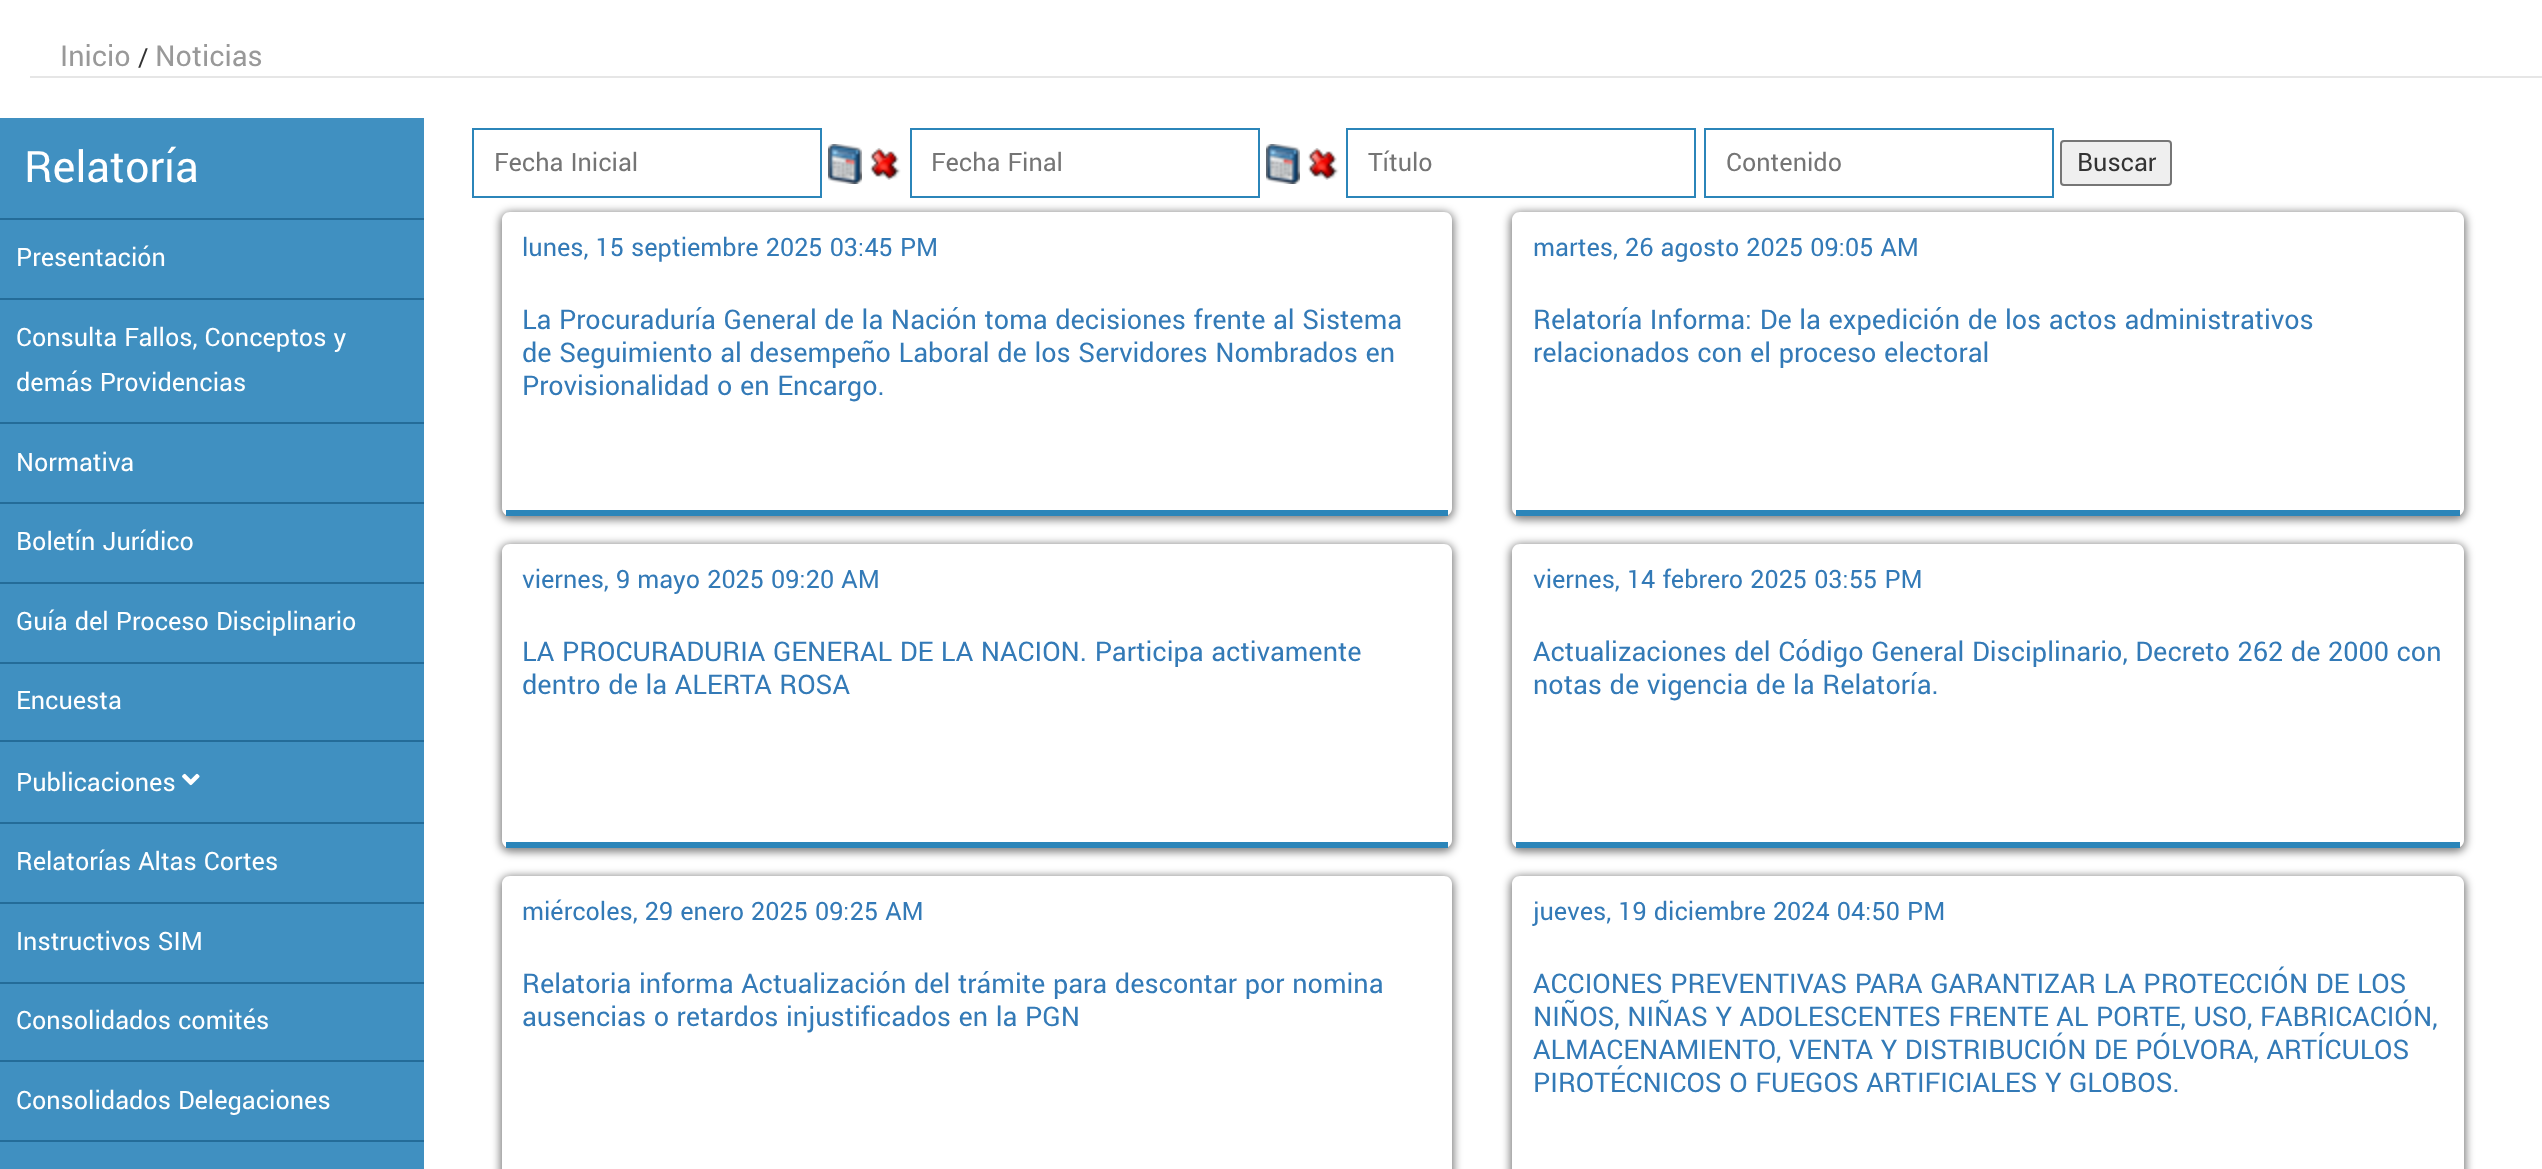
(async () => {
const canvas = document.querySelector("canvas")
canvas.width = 2542
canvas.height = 1169
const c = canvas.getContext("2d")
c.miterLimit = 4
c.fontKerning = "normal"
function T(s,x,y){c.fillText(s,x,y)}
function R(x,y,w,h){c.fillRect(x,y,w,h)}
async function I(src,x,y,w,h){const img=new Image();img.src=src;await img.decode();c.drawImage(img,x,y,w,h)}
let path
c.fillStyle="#fff"
R(0,0,2542,1169)
c.fillStyle="#e6e6e6"
R(30,76,2512,2)
c.font="32px Yantramanav"
c.fillStyle="#999"
T("Inicio",60,66)
c.font="28px Yantramanav"
c.fillStyle="#333"
T("/",138,66)
c.font="32px Yantramanav"
c.fillStyle="#999"
T("Noticias",155,66)
c.fillStyle="#4090c1"
R(0,118,424,1051)
c.fillStyle="#246c99"
R(0,218,424,2)
c.font="48px Yantramanav"
c.fillStyle="#fff"
T("Relatoría",24,182)
c.fillStyle="#246c99"
R(0,298,424,2)
c.font="28px Yantramanav"
c.fillStyle="#fff"
T("Presentación",16,266)
c.fillStyle="#246c99"
R(0,422,424,2)
c.fillStyle="#fff"
T("Consulta Fallos, Conceptos y",16,346)
T("demás Providencias",16,391)
c.fillStyle="#246c99"
R(0,502,424,2)
c.fillStyle="#fff"
T("Normativa",16,471)
c.fillStyle="#246c99"
R(0,582,424,2)
c.fillStyle="#fff"
T("Boletín Jurídico",16,550)
c.fillStyle="#246c99"
R(0,662,424,2)
c.fillStyle="#fff"
T("Guía del Proceso Disciplinario",16,630)
c.fillStyle="#246c99"
R(0,740,424,2)
c.fillStyle="#fff"
T("Encuesta",16,709)
c.fillStyle="#246c99"
R(0,822,424,2)
c.fillStyle="#fff"
T("Publicaciones",16,791)
await I("1.png",182,773,18,13)
c.fillStyle="#246c99"
R(0,902,424,2)
c.fillStyle="#fff"
T("Relatorías Altas Cortes",16,870)
c.fillStyle="#246c99"
R(0,982,424,2)
c.fillStyle="#fff"
T("Instructivos SIM",16,950)
c.fillStyle="#246c99"
R(0,1060,424,2)
c.fillStyle="#fff"
T("Consolidados comités",16,1029)
c.fillStyle="#246c99"
R(0,1140,424,2)
c.fillStyle="#fff"
T("Consolidados Delegaciones",16,1109)
c.strokeStyle="#2b85b9"
c.lineWidth=2
c.strokeRect(473,129,348,68)
c.fillStyle="#757575"
T("Fecha Inicial",494,171)
await I("2.png",828,144,34,40)
await I("3.png",870,148,31,32)
c.strokeRect(911,129,348,68)
T("Fecha Final",931,171)
await I("2.png",1266,144,34,40)
await I("3.png",1308,148,31,32)
c.strokeRect(1347,129,348,68)
T("Título",1368,171)
c.strokeRect(1705,129,348,68)
T("Contenido",1726,171)
c.fillStyle="#efefef"
c.beginPath()
c.roundRect(2061,141,110,44,3)
c.fill()
c.strokeStyle="#767676"
c.stroke()
c.fillStyle="#333"
T("Buscar",2077,171)
c.save()
path = new Path2D("M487 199h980v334h-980zm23 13h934c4.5 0 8 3.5 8 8v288c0 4.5-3.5 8-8 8h-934c-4.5 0-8-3.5-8-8v-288c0-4.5 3.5-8 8-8z")
c.clip(path,"evenodd")
c.fillStyle="#00000080"
c.filter="blur(4px)"
c.beginPath()
c.roundRect(500,212,954,308,10)
c.fill()
c.filter="none"
c.restore()
c.fillStyle="#2b85b9"
R(506,510,942,6)
c.fillStyle="#337ab7"
T("lunes, 15 septiembre 2025 03:45 PM",522,256)
c.font="30px Yantramanav"
T("La Procuraduría General de la Nación toma decisiones frente al Sistema",522,329)
T("de Seguimiento al desempeño Laboral de los Servidores Nombrados en",522,362)
T("Provisionalidad o en Encargo.",522,395)
c.save()
path = new Path2D("M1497 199h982v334h-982zm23 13h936c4.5 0 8 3.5 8 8v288c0 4.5-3.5 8-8 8h-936c-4.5 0-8-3.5-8-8v-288c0-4.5 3.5-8 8-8z")
c.clip(path,"evenodd")
c.fillStyle="#00000080"
c.filter="blur(4px)"
c.beginPath()
c.roundRect(1510,212,956,308,10)
c.fill()
c.filter="none"
c.restore()
c.fillStyle="#2b85b9"
R(1516,510,944,6)
c.font="28px Yantramanav"
c.fillStyle="#337ab7"
T("martes, 26 agosto 2025 09:05 AM",1533,256)
c.font="30px Yantramanav"
T("Relatoría Informa: De la expedición de los actos administrativos",1533,329)
T("relacionados con el proceso electoral",1533,362)
c.save()
path = new Path2D("M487 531h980v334h-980zm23 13h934c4.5 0 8 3.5 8 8v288c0 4.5-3.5 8-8 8h-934c-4.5 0-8-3.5-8-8v-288c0-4.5 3.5-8 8-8z")
c.clip(path,"evenodd")
c.fillStyle="#00000080"
c.filter="blur(4px)"
c.beginPath()
c.roundRect(500,544,954,308,10)
c.fill()
c.filter="none"
c.restore()
c.fillStyle="#2b85b9"
R(506,842,942,6)
c.font="28px Yantramanav"
c.fillStyle="#337ab7"
T("viernes, 9 mayo 2025 09:20 AM",522,588)
c.font="30px Yantramanav"
T("LA PROCURADURIA GENERAL DE LA NACION. Participa activamente",522,661)
T("dentro de la ALERTA ROSA",522,694)
c.save()
path = new Path2D("M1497 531h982v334h-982zm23 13h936c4.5 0 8 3.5 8 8v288c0 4.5-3.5 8-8 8h-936c-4.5 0-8-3.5-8-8v-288c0-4.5 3.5-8 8-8z")
c.clip(path,"evenodd")
c.fillStyle="#00000080"
c.filter="blur(4px)"
c.beginPath()
c.roundRect(1510,544,956,308,10)
c.fill()
c.filter="none"
c.restore()
c.fillStyle="#2b85b9"
R(1516,842,944,6)
c.font="28px Yantramanav"
c.fillStyle="#337ab7"
T("viernes, 14 febrero 2025 03:55 PM",1533,588)
c.font="30px Yantramanav"
T("Actualizaciones del Código General Disciplinario, Decreto 262 de 2000 con",1533,661)
T("notas de vigencia de la Relatoría.",1533,694)
c.save()
path = new Path2D("M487 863h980v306h-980zm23 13h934c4.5 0 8 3.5 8 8v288c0 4.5-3.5 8-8 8h-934c-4.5 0-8-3.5-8-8v-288c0-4.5 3.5-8 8-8z")
c.clip(path,"evenodd")
c.fillStyle="#00000080"
c.filter="blur(4px)"
c.beginPath()
c.roundRect(500,876,954,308,10)
c.fill()
c.filter="none"
c.restore()
c.font="28px Yantramanav"
T("miércoles, 29 enero 2025 09:25 AM",522,920)
c.font="30px Yantramanav"
T("Relatoria informa Actualización del trámite para descontar por nomina",522,993)
T("ausencias o retardos injustificados en la PGN",522,1026)
c.save()
path = new Path2D("M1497 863h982v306h-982zm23 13h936c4.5 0 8 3.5 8 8v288c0 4.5-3.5 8-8 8h-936c-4.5 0-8-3.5-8-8v-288c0-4.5 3.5-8 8-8z")
c.clip(path,"evenodd")
c.fillStyle="#00000080"
c.filter="blur(4px)"
c.beginPath()
c.roundRect(1510,876,956,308,10)
c.fill()
c.filter="none"
c.restore()
c.font="28px Yantramanav"
T("jueves, 19 diciembre 2024 04:50 PM",1533,920)
c.font="30px Yantramanav"
T("ACCIONES PREVENTIVAS PARA GARANTIZAR LA PROTECCIÓN DE LOS",1533,993)
T("NIÑOS, NIÑAS Y ADOLESCENTES FRENTE AL PORTE, USO, FABRICACIÓN,",1533,1026)
T("ALMACENAMIENTO, VENTA Y DISTRIBUCIÓN DE PÓLVORA, ARTÍCULOS",1533,1059)
T("PIROTÉCNICOS O FUEGOS ARTIFICIALES Y GLOBOS.",1533,1092)
})()
